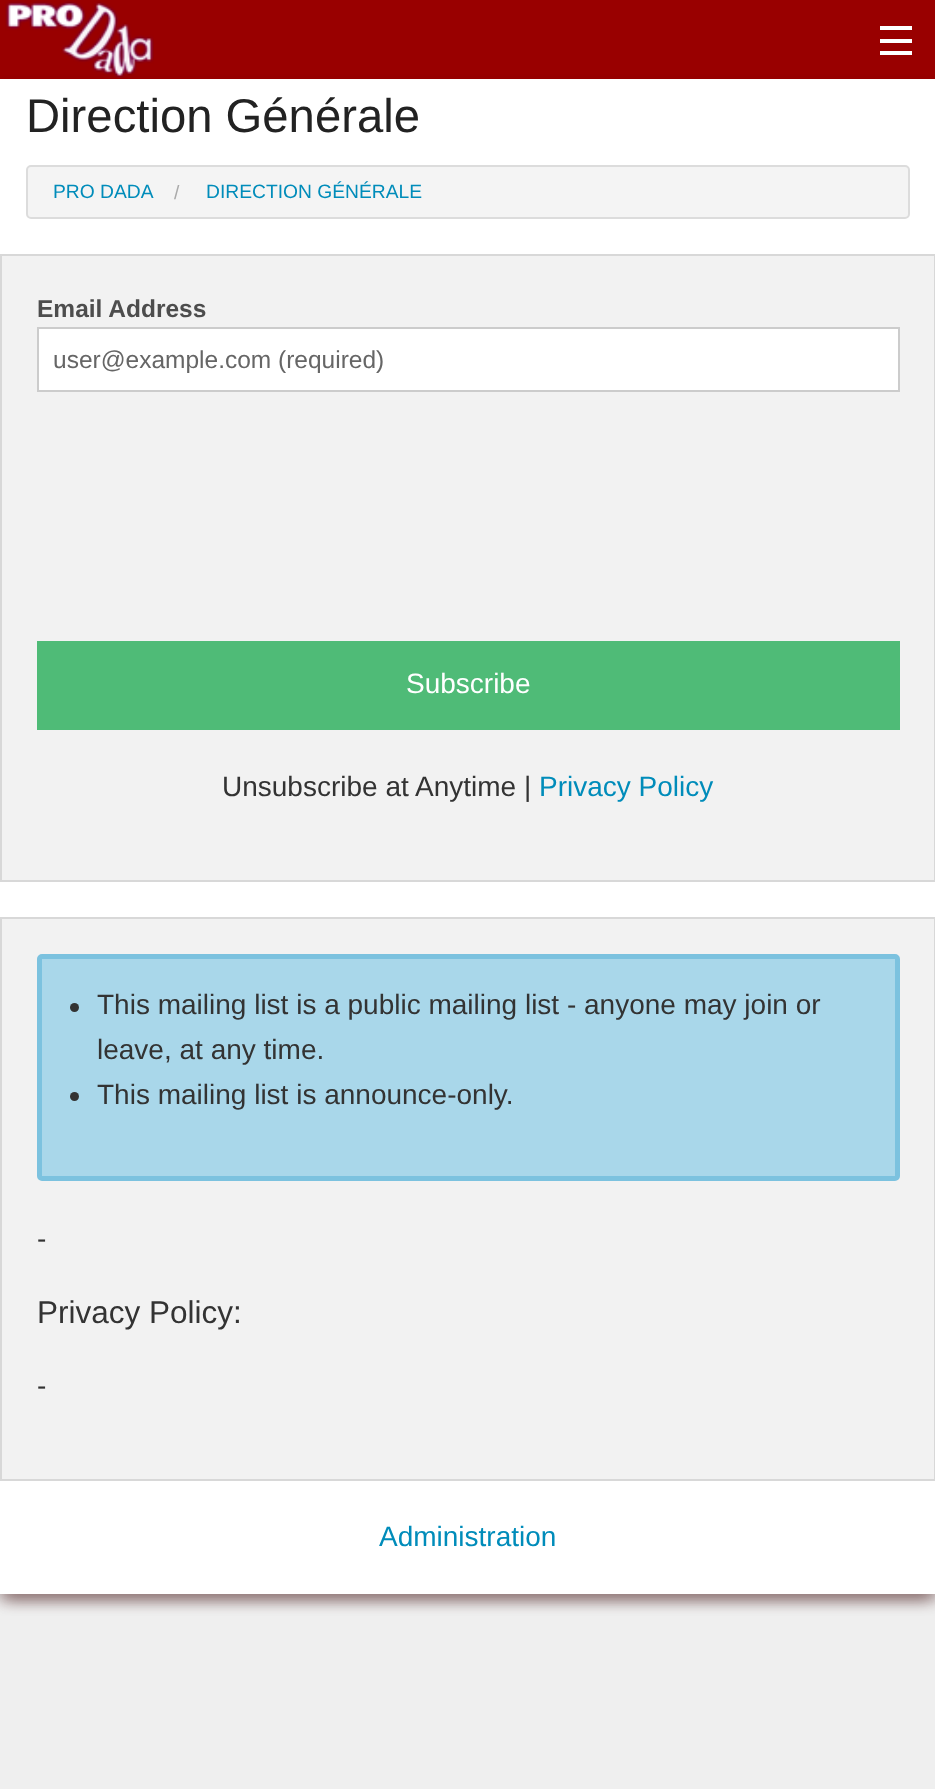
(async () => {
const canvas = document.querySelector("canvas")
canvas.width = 935
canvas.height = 1789
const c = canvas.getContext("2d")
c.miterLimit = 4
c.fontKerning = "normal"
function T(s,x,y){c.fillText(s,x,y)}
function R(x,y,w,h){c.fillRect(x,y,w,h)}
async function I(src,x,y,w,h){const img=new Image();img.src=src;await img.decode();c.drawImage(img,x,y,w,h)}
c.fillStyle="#efefef"
R(0,0,935,1789)
c.fillStyle="#900"
R(0,0,935,79)
await I("1.png",5,1,149,77)
c.fillStyle="#fff"
R(880,51,32,4)
R(880,39,32,4)
R(880,26,32,4)
c.fillStyle="#3300004d"
c.filter="blur(7px)"
c.beginPath()
c.rect(-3,89,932,1512)
c.fill()
c.filter="none"
c.filter="blur(7px)"
c.beginPath()
c.rect(7,89,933,1512)
c.fill()
c.filter="none"
c.fillStyle="#fff"
R(0,79,935,1515)
c.font="47.25px Liberation Sans"
c.fillStyle="#222"
T("Direction Générale",26,132)
c.fillStyle="#f4f4f4"
c.beginPath()
c.roundRect(27,166,882,52,4)
c.fill()
c.strokeStyle="#dcdcdc"
c.lineWidth=2
c.stroke()
c.font="19.25px Liberation Sans"
c.fillStyle="#008cba"
T("PRO DADA",53,198)
c.fillStyle="#aaa"
T("/",174,199)
c.fillStyle="#008cba"
T("DIRECTION GÉNÉRALE",206,198)
c.fillStyle="#f2f2f2"
c.beginPath()
c.rect(1,255,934,626)
c.fill()
c.strokeStyle="#d8d8d8"
c.stroke()
c.font="bold 24.5px Liberation Sans"
c.fillStyle="#4d4d4d"
T("Email Address",37,317)
c.fillStyle="#fff"
c.beginPath()
c.rect(38,328,861,63)
c.fill()
c.strokeStyle="#ccc"
c.stroke()
c.save()
c.beginPath()
c.rect(53,345,831,28)
c.clip()
c.font="24.5px Liberation Sans"
c.fillStyle="#666"
T("user@example.com (required)",53,368)
c.restore()
c.fillStyle="#4fbb77"
R(37,641,863,89)
c.font="28px Liberation Sans"
c.fillStyle="#fff"
T("Subscribe",406,693)
c.fillStyle="#333"
T("Unsubscribe at Anytime |",222,796)
c.fillStyle="#008cba"
T("Privacy Policy",539,796)
c.fillStyle="#f2f2f2"
c.beginPath()
c.rect(1,918,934,562)
c.fill()
c.strokeStyle="#d8d8d8"
c.stroke()
c.fillStyle="#a9d7ea"
c.beginPath()
c.roundRect(39.5,956.5,858,222,2.5)
c.fill()
c.strokeStyle="#7cc2df"
c.lineWidth=5
c.stroke()
c.fillStyle="#333"
c.beginPath()
c.arc(74.5,1007.5,4.5,0,7)
c.fill()
T("This mailing list is a public mailing list - anyone may join or",97,1014)
T("leave, at any time.",97,1059)
c.beginPath()
c.arc(74.5,1096.5,4.5,0,7)
c.fill()
T("This mailing list is announce-only.",97,1104)
T("-",37,1248)
c.font="31.5px Liberation Sans"
T("Privacy Policy:",37,1323)
c.font="28px Liberation Sans"
T("-",37,1395)
c.fillStyle="#008cba"
T("Administration",379,1546)
})()
